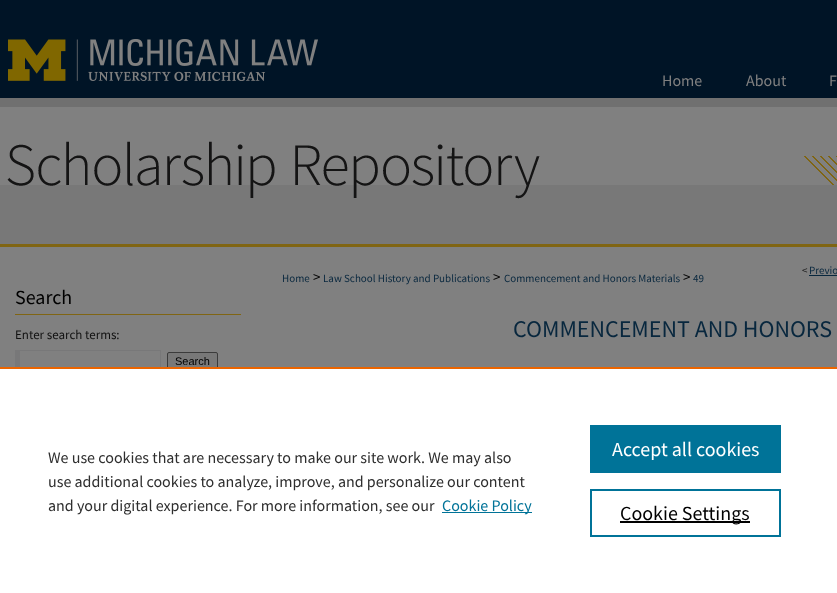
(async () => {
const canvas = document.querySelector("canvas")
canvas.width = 837
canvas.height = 593
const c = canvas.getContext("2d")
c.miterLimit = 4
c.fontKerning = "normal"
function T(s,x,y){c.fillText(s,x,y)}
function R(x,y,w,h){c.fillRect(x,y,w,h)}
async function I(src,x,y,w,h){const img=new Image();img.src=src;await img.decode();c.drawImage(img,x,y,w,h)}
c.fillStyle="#808080"
R(0,0,837,593)
await I("1.png",0,0,837,98)
await I("2.png",8,39,310,42)
c.font="16px Source Sans Pro"
T("Home",662,86)
T("About",746,86)
T("F",829,86)
await I("3.png",0,98,837,149)
c.fillStyle="#806513"
R(15,314,226,1)
c.font="20px Source Sans Pro"
c.fillStyle="#000"
T("Search",15,304)
c.font="13px Source Sans Pro"
c.fillStyle="#111"
T("Enter search terms:",15,339)
c.fillStyle="#787879"
R(15,350,146,1)
R(160,350,1,21)
R(15,350,5,21)
c.fillStyle="#787878"
c.beginPath()
c.roundRect(167.5,352.5,50,17,1.5)
c.fill()
c.strokeStyle="#3b3b3b"
c.stroke()
c.font="11px Liberation Sans"
c.fillStyle="#000"
T("Search",175,365)
c.font="11px Source Sans Pro"
c.fillStyle="#111"
T("<",802,274)
c.fillStyle="#08273e"
T("Previo",809,274)
R(809,275,28,1)
T("Home",282,282)
c.font="15px Source Sans Pro"
c.fillStyle="#000"
T(">",313,282)
c.font="11px Source Sans Pro"
c.fillStyle="#08273e"
T("Law School History and Publications",323,282)
c.font="15px Source Sans Pro"
c.fillStyle="#000"
T(">",493,282)
c.font="11px Source Sans Pro"
c.fillStyle="#08273e"
T("Commencement and Honors Materials",504,282)
c.font="15px Source Sans Pro"
c.fillStyle="#000"
T(">",683,282)
c.font="11px Source Sans Pro"
c.fillStyle="#08273e"
T("49",693,282)
c.font="24px Source Sans Pro"
T("COMMENCEMENT AND HONORS",513,337)
c.fillStyle="#fff"
R(0,369,837,224)
c.fillStyle="#eb6500"
R(0,367,837,2)
c.font="16px Source Sans Pro"
c.fillStyle="#2e2e2e"
T("We use cookies that are necessary to make our site work. We may also",48,463)
T("use additional cookies to analyze, improve, and personalize our content",48,487)
T("and your digital experience. For more information, see our",48,511)
c.fillStyle="#007398"
R(442,512,90,1)
T("Cookie Policy",442,511)
R(590,425,191,48)
c.font="20px Source Sans Pro"
c.fillStyle="#fff"
T("Accept all cookies",612,456)
c.strokeStyle="#007398"
c.lineWidth=2
c.strokeRect(591,490,189,46)
c.fillStyle="#000"
R(620,521,130,2)
T("Cookie Settings",620,520)
})()
